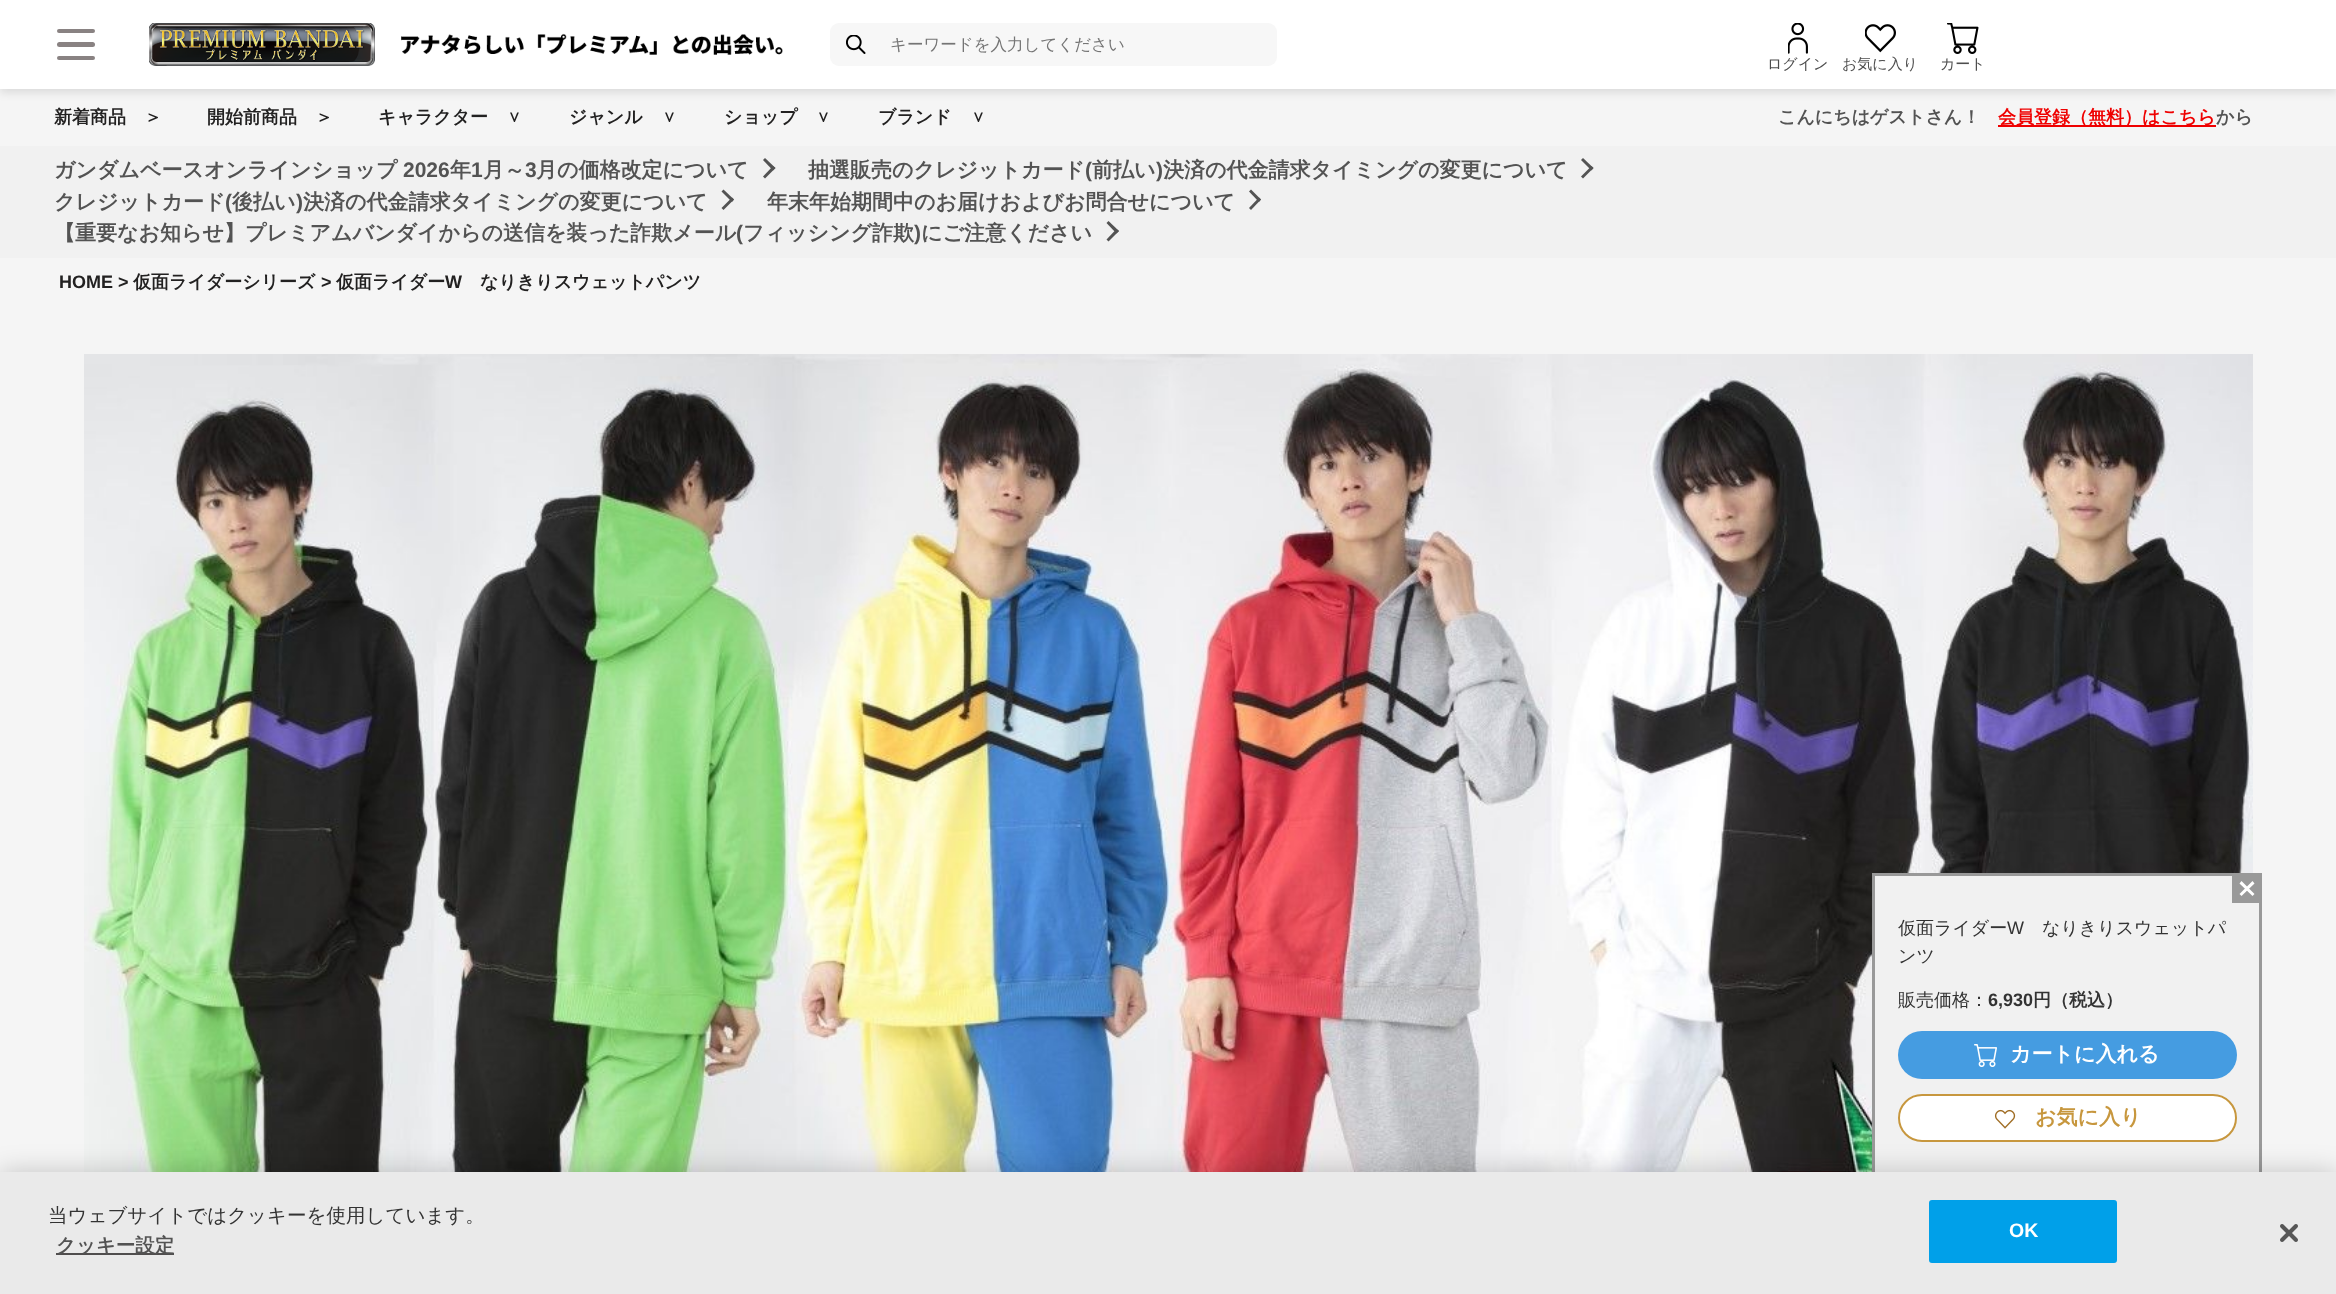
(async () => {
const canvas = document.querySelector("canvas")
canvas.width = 2336
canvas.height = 1294
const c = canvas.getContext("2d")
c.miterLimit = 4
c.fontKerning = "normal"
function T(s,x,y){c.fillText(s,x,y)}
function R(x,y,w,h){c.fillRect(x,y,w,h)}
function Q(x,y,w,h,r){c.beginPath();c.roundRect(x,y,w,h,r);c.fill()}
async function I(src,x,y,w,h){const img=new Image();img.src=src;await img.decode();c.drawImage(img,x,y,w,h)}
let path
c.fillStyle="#fff"
R(0,0,2336,1294)
c.fillStyle="#f5f5f5"
R(0,89,2336,57)
c.save()
path = new Path2D("M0 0h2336v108h-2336zm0 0h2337v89h-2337z")
c.clip(path,"evenodd")
c.fillStyle="#0000001a"
c.filter="blur(4.5px)"
c.beginPath()
c.rect(0,5,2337,88)
c.fill()
c.filter="none"
c.restore()
c.fillStyle="#ffffffe6"
R(0,88,2336,1)
c.fillStyle="#898282"
Q(57,29,38,4,2)
Q(57,42,38,5,2.5)
Q(57,56,38,4,2)
await I("1.png",149,23,634,43)
c.fillStyle="#f7f7f7"
Q(830,23,447,43,9)
await I("2.png",846,35,20,19)
c.font="500 16.5px WenQuanYi Zen Hei"
c.fillStyle="#757575"
T("キーワードを入力してください",890,50)
await I("3.png",1788,23,20,31)
c.font="500 15px WenQuanYi Zen Hei"
c.fillStyle="#4d4d4d"
T("ログイン",1767,69)
await I("4.png",1865,24,31,29)
T("お気に入り",1842,69)
await I("5.png",1947,23,32,31)
T("カート",1940,69)
c.font="bold 18px WenQuanYi Zen Hei"
c.fillStyle="#222121"
T("新着商品",54,123)
T("＞",144,123)
T("開始前商品",207,123)
T("＞",315,123)
T("キャラクター",378,123)
c.save()
c.translate(509,108)
c.rotate(90 * Math.PI / 180)
c.fillText("＞",0,0)
c.restore()
T("ジャンル",569,123)
c.save()
c.translate(664,108)
c.rotate(90 * Math.PI / 180)
c.fillText("＞",0,0)
c.restore()
T("ショップ",724,123)
c.save()
c.translate(818,108)
c.rotate(90 * Math.PI / 180)
c.fillText("＞",0,0)
c.restore()
T("ブランド",878,123)
c.save()
c.translate(973,108)
c.rotate(90 * Math.PI / 180)
c.fillText("＞",0,0)
c.restore()
c.fillStyle="#535353"
T("こんにちはゲストさん！",1778,123)
c.fillStyle="#ef0000"
R(1998,125,218,2)
T("会員登録（無料）はこちら",1998,123)
c.fillStyle="#535353"
T("から",2216,123)
c.fillStyle="#f1f1f1"
R(0,146,2336,112)
c.font="bold 21px WenQuanYi Zen Hei"
c.fillStyle="#535353"
T("ガンダムベースオンラインショップ",54,177)
c.font="bold 21px Liberation Sans"
T("2026",403,177)
c.font="bold 21px WenQuanYi Zen Hei"
T("年",450,177)
c.font="bold 21px Liberation Sans"
T("1",471,177)
c.font="bold 21px WenQuanYi Zen Hei"
T("月～",483,177)
c.font="bold 21px Liberation Sans"
T("3",525,177)
c.font="bold 21px WenQuanYi Zen Hei"
T("月の価格改定について",536,177)
path = new Path2D("M763 160l2-2l10.5 10l-2.5 2.5z")
c.fill(path)
path = new Path2D("M763 176.5l10-10.5l2.5 2l-10.5 10.5z")
c.fill(path)
T("抽選販売のクレジットカード",808,177)
c.font="bold 21px Liberation Sans"
T("(",1085,177)
c.font="bold 21px WenQuanYi Zen Hei"
T("前払い",1092,177)
c.font="bold 21px Liberation Sans"
T(")",1156,177)
c.font="bold 21px WenQuanYi Zen Hei"
T("決済の代金請求タイミングの変更について",1163,177)
path = new Path2D("M1581 160l2-2l10.5 10l-2 2.5z")
c.fill(path)
path = new Path2D("M1581 176.5l10.5-10.5l2 2l-10.5 10.5z")
c.fill(path)
T("クレジットカード",54,209)
c.font="bold 21px Liberation Sans"
T("(",225,209)
c.font="bold 21px WenQuanYi Zen Hei"
T("後払い",232,209)
c.font="bold 21px Liberation Sans"
T(")",296,209)
c.font="bold 21px WenQuanYi Zen Hei"
T("決済の代金請求タイミングの変更について",303,209)
path = new Path2D("M721.5 191.5l2-2l10.5 10l-2 2.5z")
c.fill(path)
path = new Path2D("M721.5 208l10.5-10.5l2 2l-10.5 10.5z")
c.fill(path)
T("年末年始期間中のお届けおよびお問合せについて",767,209)
path = new Path2D("M1249 191.5l2-2l10 10l-2 2.5z")
c.fill(path)
path = new Path2D("M1249 208l10-10.5l2 2l-10 10.5z")
c.fill(path)
T("【重要なお知らせ】プレミアムバンダイからの送信を装った詐欺メール",54,240)
c.font="bold 21px Liberation Sans"
T("(",736,240)
c.font="bold 21px WenQuanYi Zen Hei"
T("フィッシング詐欺",743,240)
c.font="bold 21px Liberation Sans"
T(")",914,240)
c.font="bold 21px WenQuanYi Zen Hei"
T("にご注意ください",921,240)
path = new Path2D("M1106.5 223l2-2l10.5 10l-2.5 2.5z")
c.fill(path)
path = new Path2D("M1106.5 239.5l10-10.5l2.5 2l-10.5 10.5z")
c.fill(path)
c.fillStyle="#f5f5f5"
R(0,258,2336,914)
c.font="bold 18px Liberation Sans"
c.fillStyle="#222121"
T("HOME >",59,288)
c.font="bold 18px WenQuanYi Zen Hei"
T("仮面ライダーシリーズ",133,288)
c.font="bold 18px Liberation Sans"
T(">",321,288)
c.font="bold 18px WenQuanYi Zen Hei"
T("仮面ライダー",336,288)
c.font="bold 18px Liberation Sans"
T("W",445,288)
c.font="bold 18px WenQuanYi Zen Hei"
T("なりきりスウェットパンツ",480,288)
await I("6.png",84,354,2169,818)
c.fillStyle="#f1f1f1"
c.beginPath()
c.rect(1873.5,874.5,387,299)
c.fill()
c.strokeStyle="#999"
c.lineWidth=3
c.stroke()
c.fillStyle="#999"
R(2232,876,27,27)
c.fillStyle="#fff"
path = new Path2D("M2239.5 894l13-13l2 2.5l-13 12.5z")
c.fill(path)
path = new Path2D("M2241.5 881l13 13l-2 2l-13-12.5z")
c.fill(path)
c.font="500 18px WenQuanYi Zen Hei"
c.fillStyle="#333"
T("仮面ライダー",1898,934)
c.font="18px Liberation Sans"
T("W",2007,934)
c.font="500 18px WenQuanYi Zen Hei"
T("なりきりスウェットパ",2042,934)
T("ンツ",1898,962)
T("販売価格：",1898,1006)
c.font="bold 18px Liberation Sans"
T("6,930",1988,1006)
c.font="bold 18px WenQuanYi Zen Hei"
T("円（税込）",2033,1006)
c.fillStyle="#459ce1"
Q(1898,1031,339,48,24)
await I("7.png",1974,1044,23,23)
c.font="bold 21px WenQuanYi Zen Hei"
c.fillStyle="#fff"
T("カートに入れる",2010,1061)
c.beginPath()
c.roundRect(1899,1095,337,46,23)
c.fill()
c.strokeStyle="#c7973e"
c.lineWidth=2
c.stroke()
await I("8.png",1994,1109,22,20)
c.fillStyle="#c7973e"
T("お気に入り",2035,1124)
c.fillStyle="#00000033"
c.filter="blur(13.5px)"
c.beginPath()
c.rect(0,1172,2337,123)
c.fill()
c.filter="none"
c.fillStyle="#eaeaea"
R(0,1172,2336,122)
c.font="500 19.5px WenQuanYi Zen Hei"
c.fillStyle="#333"
T("当ウェブサイトではクッキーを使用しています。",48,1222)
c.fillStyle="#504e4e"
R(56,1253,118,2)
c.font="bold 19.5px WenQuanYi Zen Hei"
c.fillStyle="#535353"
T("クッキー設定",56,1252)
c.fillStyle="#00a0e9"
c.beginPath()
c.roundRect(1930,1201,186,61,2)
c.fill()
c.strokeStyle="#00a0e9"
c.stroke()
c.font="bold 19.5px Liberation Sans"
c.fillStyle="#fff"
T("OK",2009,1237)
await I("9.png",2280,1224,18,18)
})()
